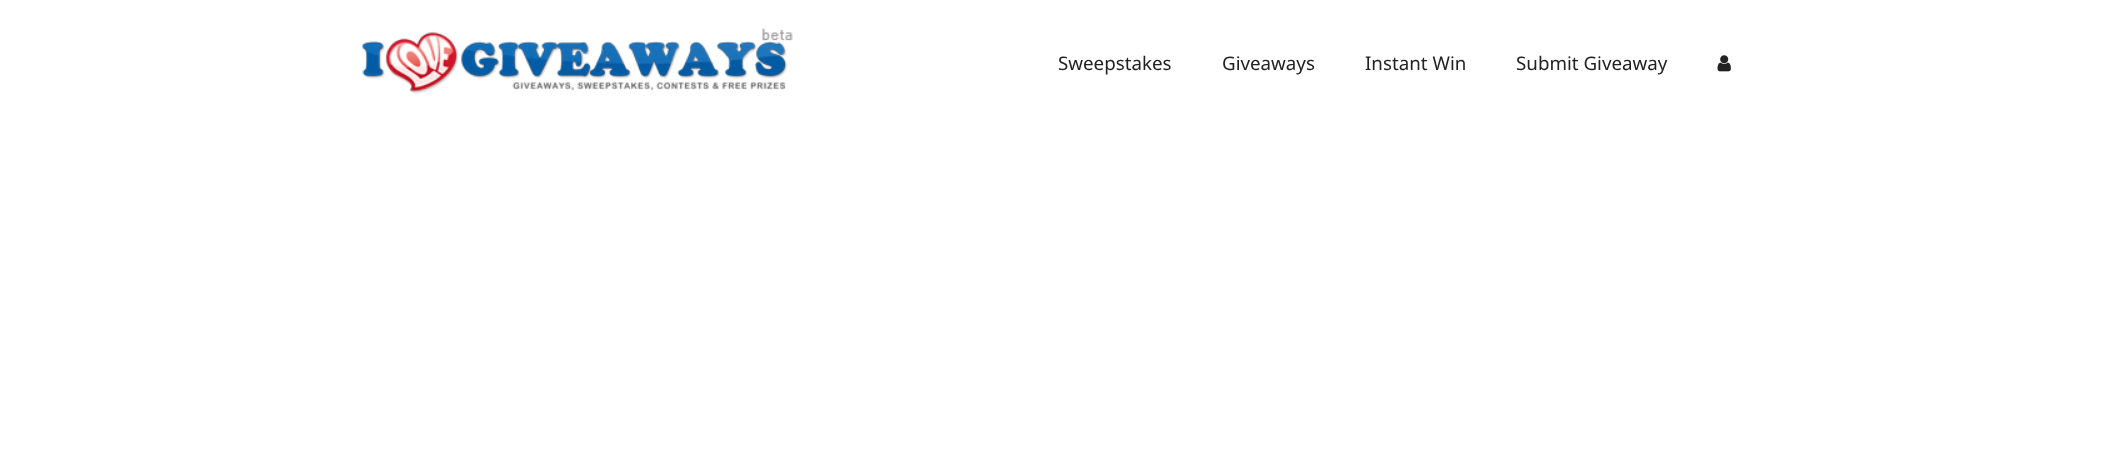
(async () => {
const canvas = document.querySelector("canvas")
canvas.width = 2111
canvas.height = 453
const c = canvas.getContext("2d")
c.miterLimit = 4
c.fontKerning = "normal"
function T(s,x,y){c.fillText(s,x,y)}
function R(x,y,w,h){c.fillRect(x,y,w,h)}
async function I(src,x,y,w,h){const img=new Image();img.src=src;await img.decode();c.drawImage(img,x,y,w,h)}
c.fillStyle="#fff"
R(0,0,2111,453)
await I("1.png",362,28,431,66)
c.font="18.75px Noto Sans"
c.fillStyle="#222"
T("Sweepstakes",1058,70)
T("Giveaways",1222,70)
T("Instant Win",1365,70)
T("Submit Giveaway",1516,70)
await I("2.png",1717,55,14,17)
})()
